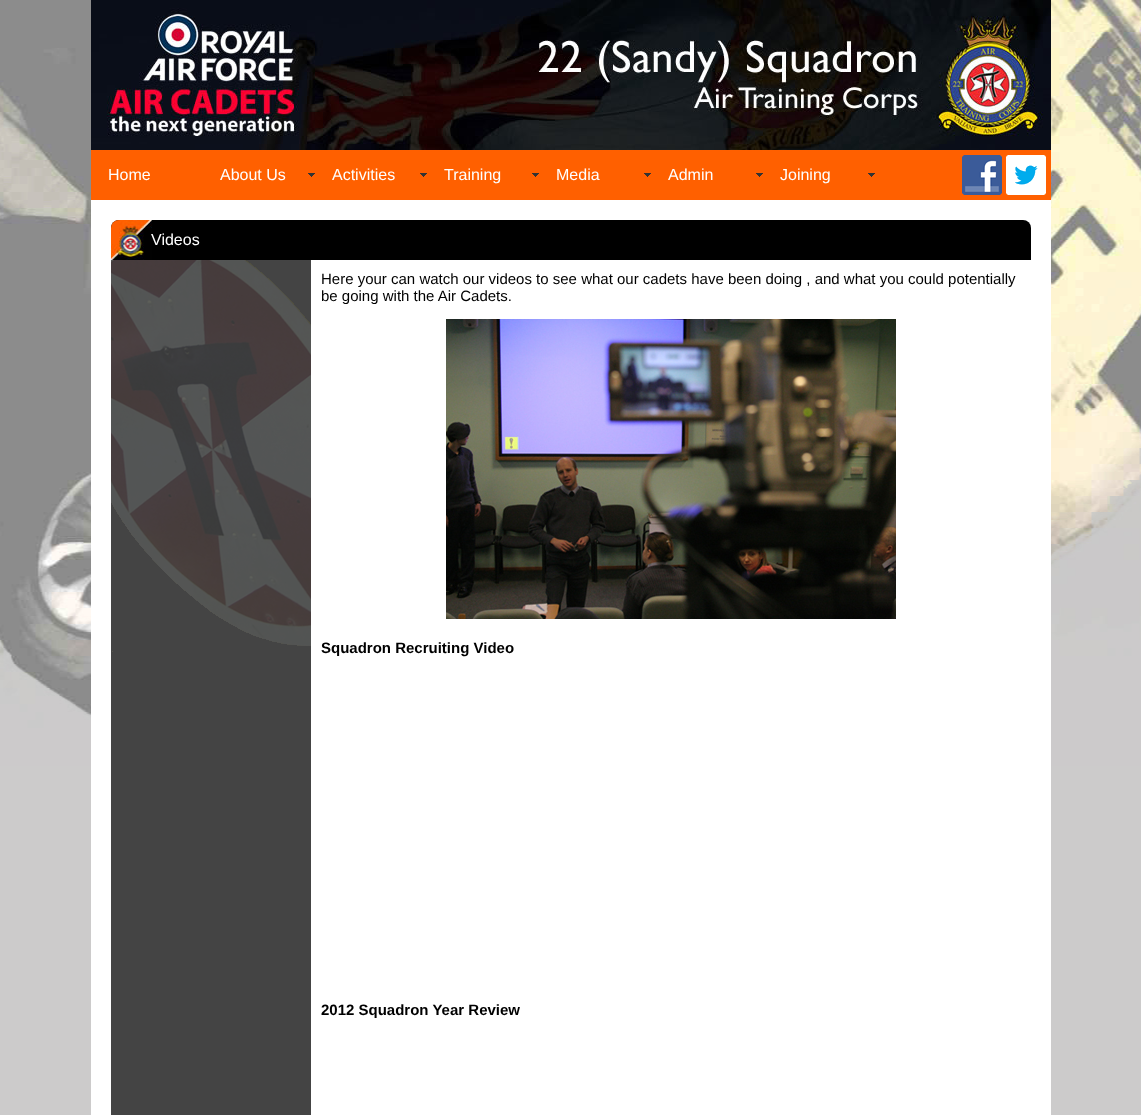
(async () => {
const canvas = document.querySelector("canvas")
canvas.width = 1141
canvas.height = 1115
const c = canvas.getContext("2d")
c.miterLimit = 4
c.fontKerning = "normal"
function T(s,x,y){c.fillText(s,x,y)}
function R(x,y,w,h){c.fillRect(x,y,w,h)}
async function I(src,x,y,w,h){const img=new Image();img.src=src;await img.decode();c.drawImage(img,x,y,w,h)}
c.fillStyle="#cccbcb"
R(0,0,1141,1115)
await I("1.png",0,0,1141,766)
await I("2.png",91,0,960,150)
c.fillStyle="#ff6000"
R(91,150,960,50)
c.font="16px Liberation Sans"
c.fillStyle="#fff"
T("Home",108,180)
await I("3.png",308,173,7,4)
T("About Us",220,180)
await I("3.png",420,173,7,4)
T("Activities",332,180)
await I("3.png",532,173,7,4)
T("Training",444,180)
await I("3.png",644,173,7,4)
T("Media",556,180)
await I("3.png",756,173,7,4)
T("Admin",668,180)
await I("3.png",868,173,7,4)
T("Joining",780,180)
await I("4.png",962,155,40,40)
await I("5.png",1006,155,40,40)
R(91,200,960,915)
c.fillStyle="#000"
c.beginPath()
c.roundRect(111,220,920,40,[8,8,0,0])
c.fill()
await I("6.png",111,220,41,40)
c.fillStyle="#fff"
T("Videos",151,245)
c.fillStyle="#444"
R(111,260,200,855)
await I("7.png",111,260,200,392)
c.font="15px Liberation Sans"
c.fillStyle="#000"
T("Here your can watch our videos to see what our cadets have been doing , and what you could potentially",321,284)
T("be going with the Air Cadets.",321,301)
await I("8.png",446,319,450,300)
c.font="bold 15px Liberation Sans"
T("Squadron Recruiting Video",321,653)
T("2012 Squadron Year Review",321,1015)
})()
